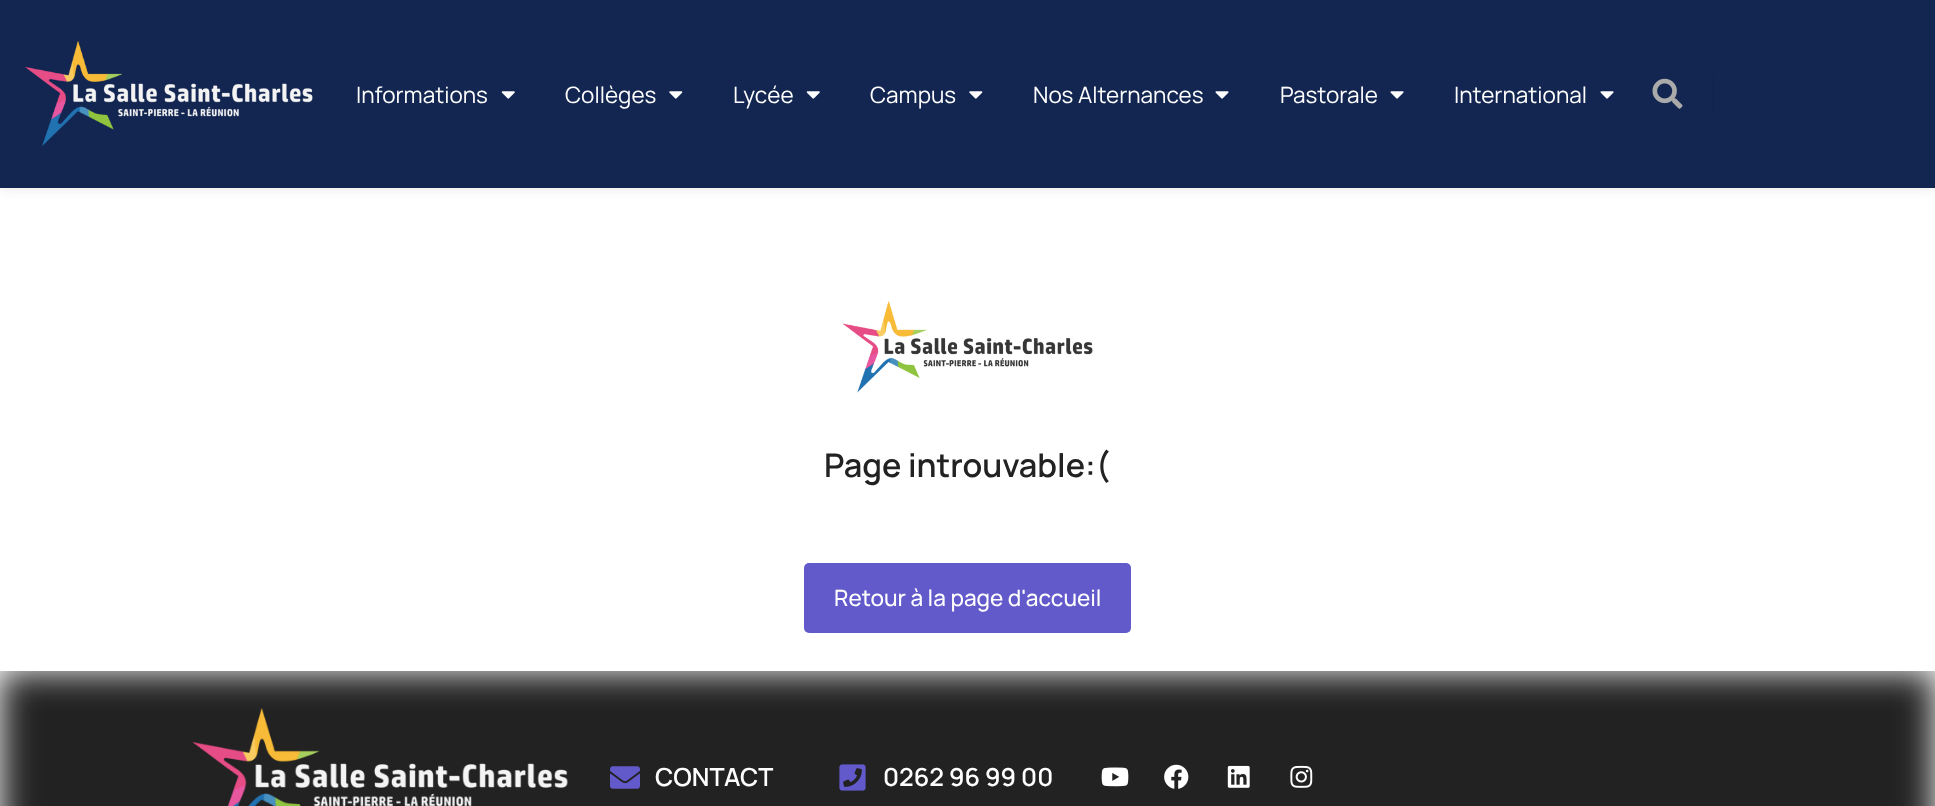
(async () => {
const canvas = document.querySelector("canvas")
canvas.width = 1935
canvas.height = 806
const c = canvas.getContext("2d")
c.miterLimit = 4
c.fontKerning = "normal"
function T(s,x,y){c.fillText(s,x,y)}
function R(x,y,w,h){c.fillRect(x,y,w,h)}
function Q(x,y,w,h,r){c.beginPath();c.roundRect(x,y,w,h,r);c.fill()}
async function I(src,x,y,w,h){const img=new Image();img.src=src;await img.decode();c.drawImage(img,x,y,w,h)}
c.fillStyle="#fff"
R(0,0,1935,806)
c.fillStyle="#0000001a"
c.filter="blur(6px)"
c.beginPath()
c.rect(0,0,1935,188)
c.fill()
c.filter="none"
c.fillStyle="#132651"
R(0,0,1935,188)
await I("1.png",25,41,288,106)
c.font="22.5px Manrope"
c.fillStyle="#fff"
T("Informations",356,103)
await I("2.png",501,91,14,8)
T("Collèges",565,103)
await I("3.png",669,91,14,8)
T("Lycée",733,103)
await I("2.png",806,91,14,8)
T("Campus",870,103)
await I("3.png",969,91,14,8)
T("Nos Alternances",1033,103)
await I("4.png",1215,91,14,8)
T("Pastorale",1280,103)
await I("4.png",1390,91,14,8)
T("International",1454,103)
await I("4.png",1600,91,14,8)
await I("5.png",1652,78,31,31)
c.fillStyle="#112249"
R(1713,75,1,38)
await I("6.png",842,301,251,92)
c.font="600 32.5px Manrope"
c.fillStyle="#222"
T("Page introuvable:(",824,477)
c.save()
c.beginPath()
c.rect(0,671,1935,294)
c.clip()
c.filter="blur(17.5px)"
c.beginPath()
c.rect(0,671,1935,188)
c.fill()
c.filter="none"
c.restore()
c.fillStyle="#6259ca"
Q(804,563,327,70,5)
c.font="500 22.5px Manrope"
c.fillStyle="#fff"
T("Retour à la page d'accueil",834,606)
await I("7.png",192,708,376,98)
await I("8.png",610,766,30,23)
c.font="600 25px Manrope"
T("CONTACT",655,786)
await I("9.png",839,764,27,27)
T("0262 96 99 00",883,786)
await I("10.png",1101,767,28,20)
await I("11.png",1164,764,25,25)
await I("12.png",1227,765,23,23)
await I("13.png",1290,765,23,23)
})()
